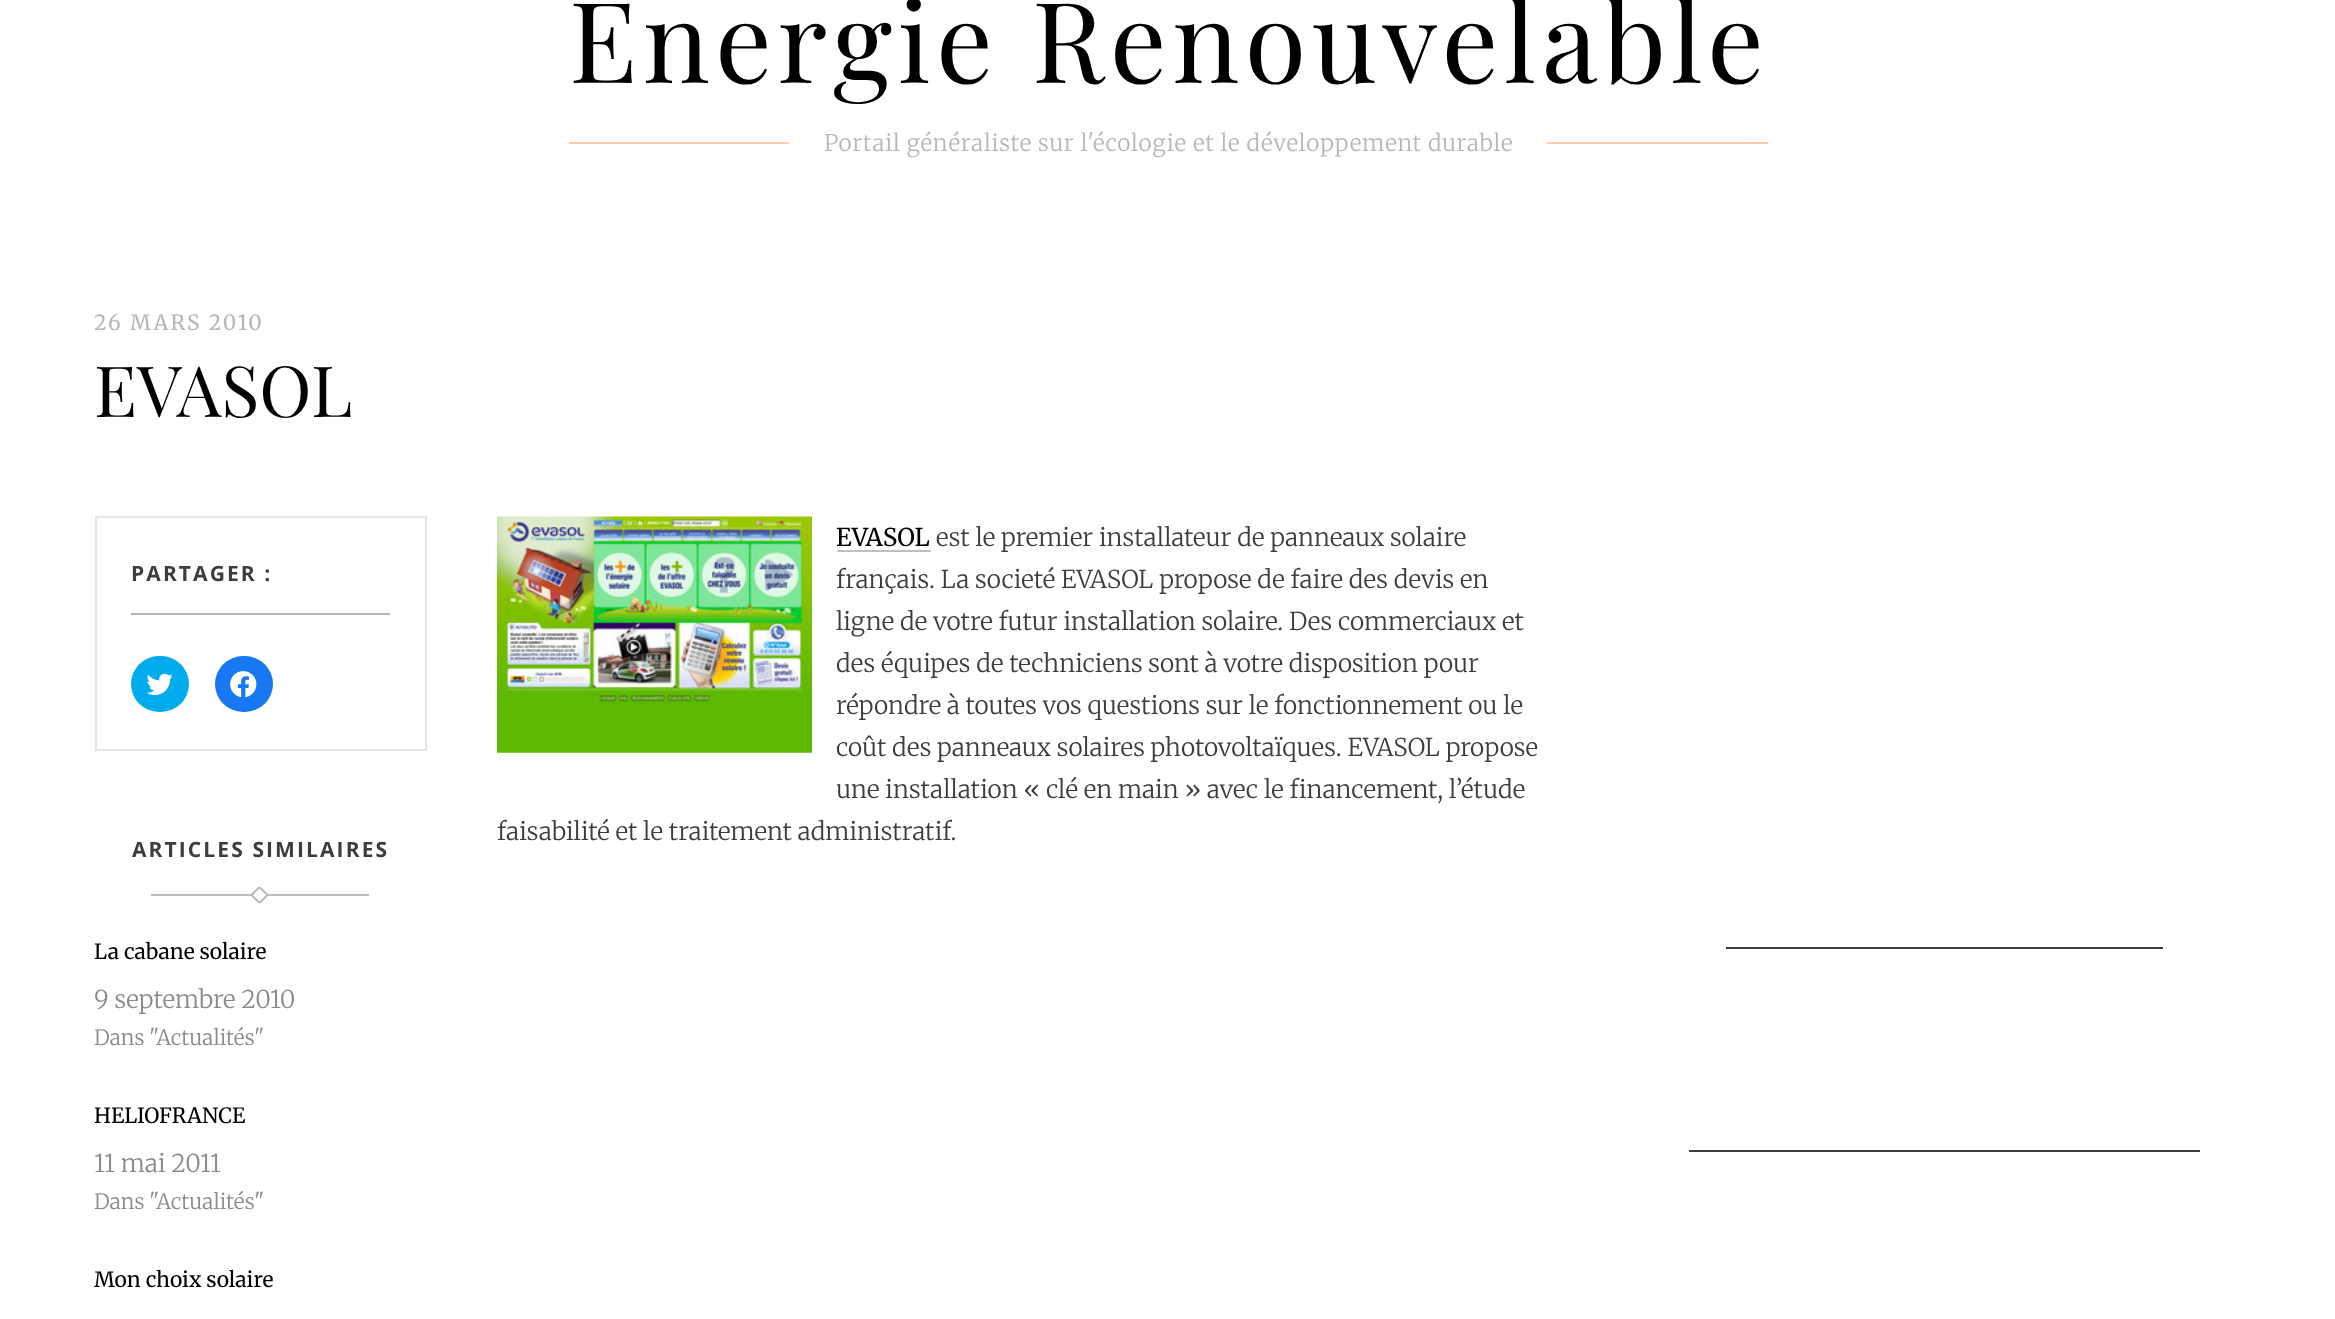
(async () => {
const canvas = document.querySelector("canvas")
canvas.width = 2335
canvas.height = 1319
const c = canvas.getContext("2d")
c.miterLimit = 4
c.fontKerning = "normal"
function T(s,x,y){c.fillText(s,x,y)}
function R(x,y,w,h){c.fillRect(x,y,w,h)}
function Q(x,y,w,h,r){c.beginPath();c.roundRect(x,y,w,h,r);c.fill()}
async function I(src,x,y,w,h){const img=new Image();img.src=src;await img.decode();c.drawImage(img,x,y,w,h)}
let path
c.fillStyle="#fff"
R(0,0,2335,1319)
c.letterSpacing="5.6px"
c.font="112px Playfair Display"
c.fillStyle="#000"
T("Energie Renouvelable",569,83)
c.fillStyle="#fcc9b0"
R(569,142,1199,2)
c.fillStyle="#fff"
R(789,142,758,2)
c.letterSpacing="0.68px"
c.font="300 22.75px Merriweather"
c.fillStyle="#b8b6b7"
T("Portail généraliste sur l'écologie et le développement durable",824,151)
c.letterSpacing="2.1px"
c.font="21px Merriweather"
T("26 MARS 2010",94,330)
c.letterSpacing="0px"
c.font="70.5px Playfair Display"
c.fillStyle="#000"
T("EVASOL",94,417)
c.strokeStyle="#e6e6e6"
c.lineWidth=2
c.strokeRect(96,517,330,233)
c.fillStyle="#b8b6b7"
R(131,613,259,2)
c.letterSpacing="2.1px"
c.font="bold 21px Open Sans"
c.fillStyle="#403b3c"
T("PARTAGER :",131,581)
c.fillStyle="#00acee"
Q(131,656,58,56,28)
await I("1.png",146,673,27,23)
c.fillStyle="#1877f2"
Q(215,656,58,56,28)
await I("2.png",230,671,27,27)
c.fillStyle="#403b3c"
T("ARTICLES SIMILAIRES",132,857)
c.save()
c.beginPath()
c.rect(151,887,218,16)
c.clip()
path = new Path2D("M251.5 895l8-8l8 8l-8 8z")
c.strokeStyle="#b8b6b7"
c.lineWidth=1.8
c.stroke(path)
c.restore()
c.fillStyle="#b8b6b7e6"
R(151,894,102,2)
R(266,894,103,2)
c.letterSpacing="0px"
c.font="21px Merriweather"
c.fillStyle="#000"
T("La cabane solaire",94,959)
c.font="300 24.5px Merriweather"
c.fillStyle="#8c898a"
T("9 septembre 2010",94,1008)
c.font="300 21px Merriweather"
T("Dans \"Actualités\"",94,1045)
c.font="21px Merriweather"
c.fillStyle="#000"
T("HELIOFRANCE",94,1123)
c.font="300 24.5px Merriweather"
c.fillStyle="#8c898a"
T("11 mai 2011",94,1172)
c.font="300 21px Merriweather"
T("Dans \"Actualités\"",94,1209)
c.font="21px Merriweather"
c.fillStyle="#000"
T("Mon choix solaire",94,1287)
await I("3.png",497,516,315,237)
c.font="24.5px Merriweather"
T("EVASOL",836,546)
c.fillStyle="#bfbfbf"
Q(837,550,94,2,1)
c.font="300 24.5px Merriweather"
c.fillStyle="#403b3c"
T("est le premier installateur de panneaux solaire",936,546)
T("français. La societé EVASOL propose de faire des devis en",836,588)
T("ligne de votre futur installation solaire. Des commerciaux et",836,630)
T("des équipes de techniciens sont à votre disposition pour",836,672)
T("répondre à toutes vos questions sur le fonctionnement ou le",836,714)
T("coût des panneaux solaires photovoltaïques. EVASOL propose",836,756)
T("une installation « clé en main » avec le financement, l’étude",836,798)
T("faisabilité et le traitement administratif.",497,840)
R(1726,947,437,2)
R(1689,1150,511,2)
})()
